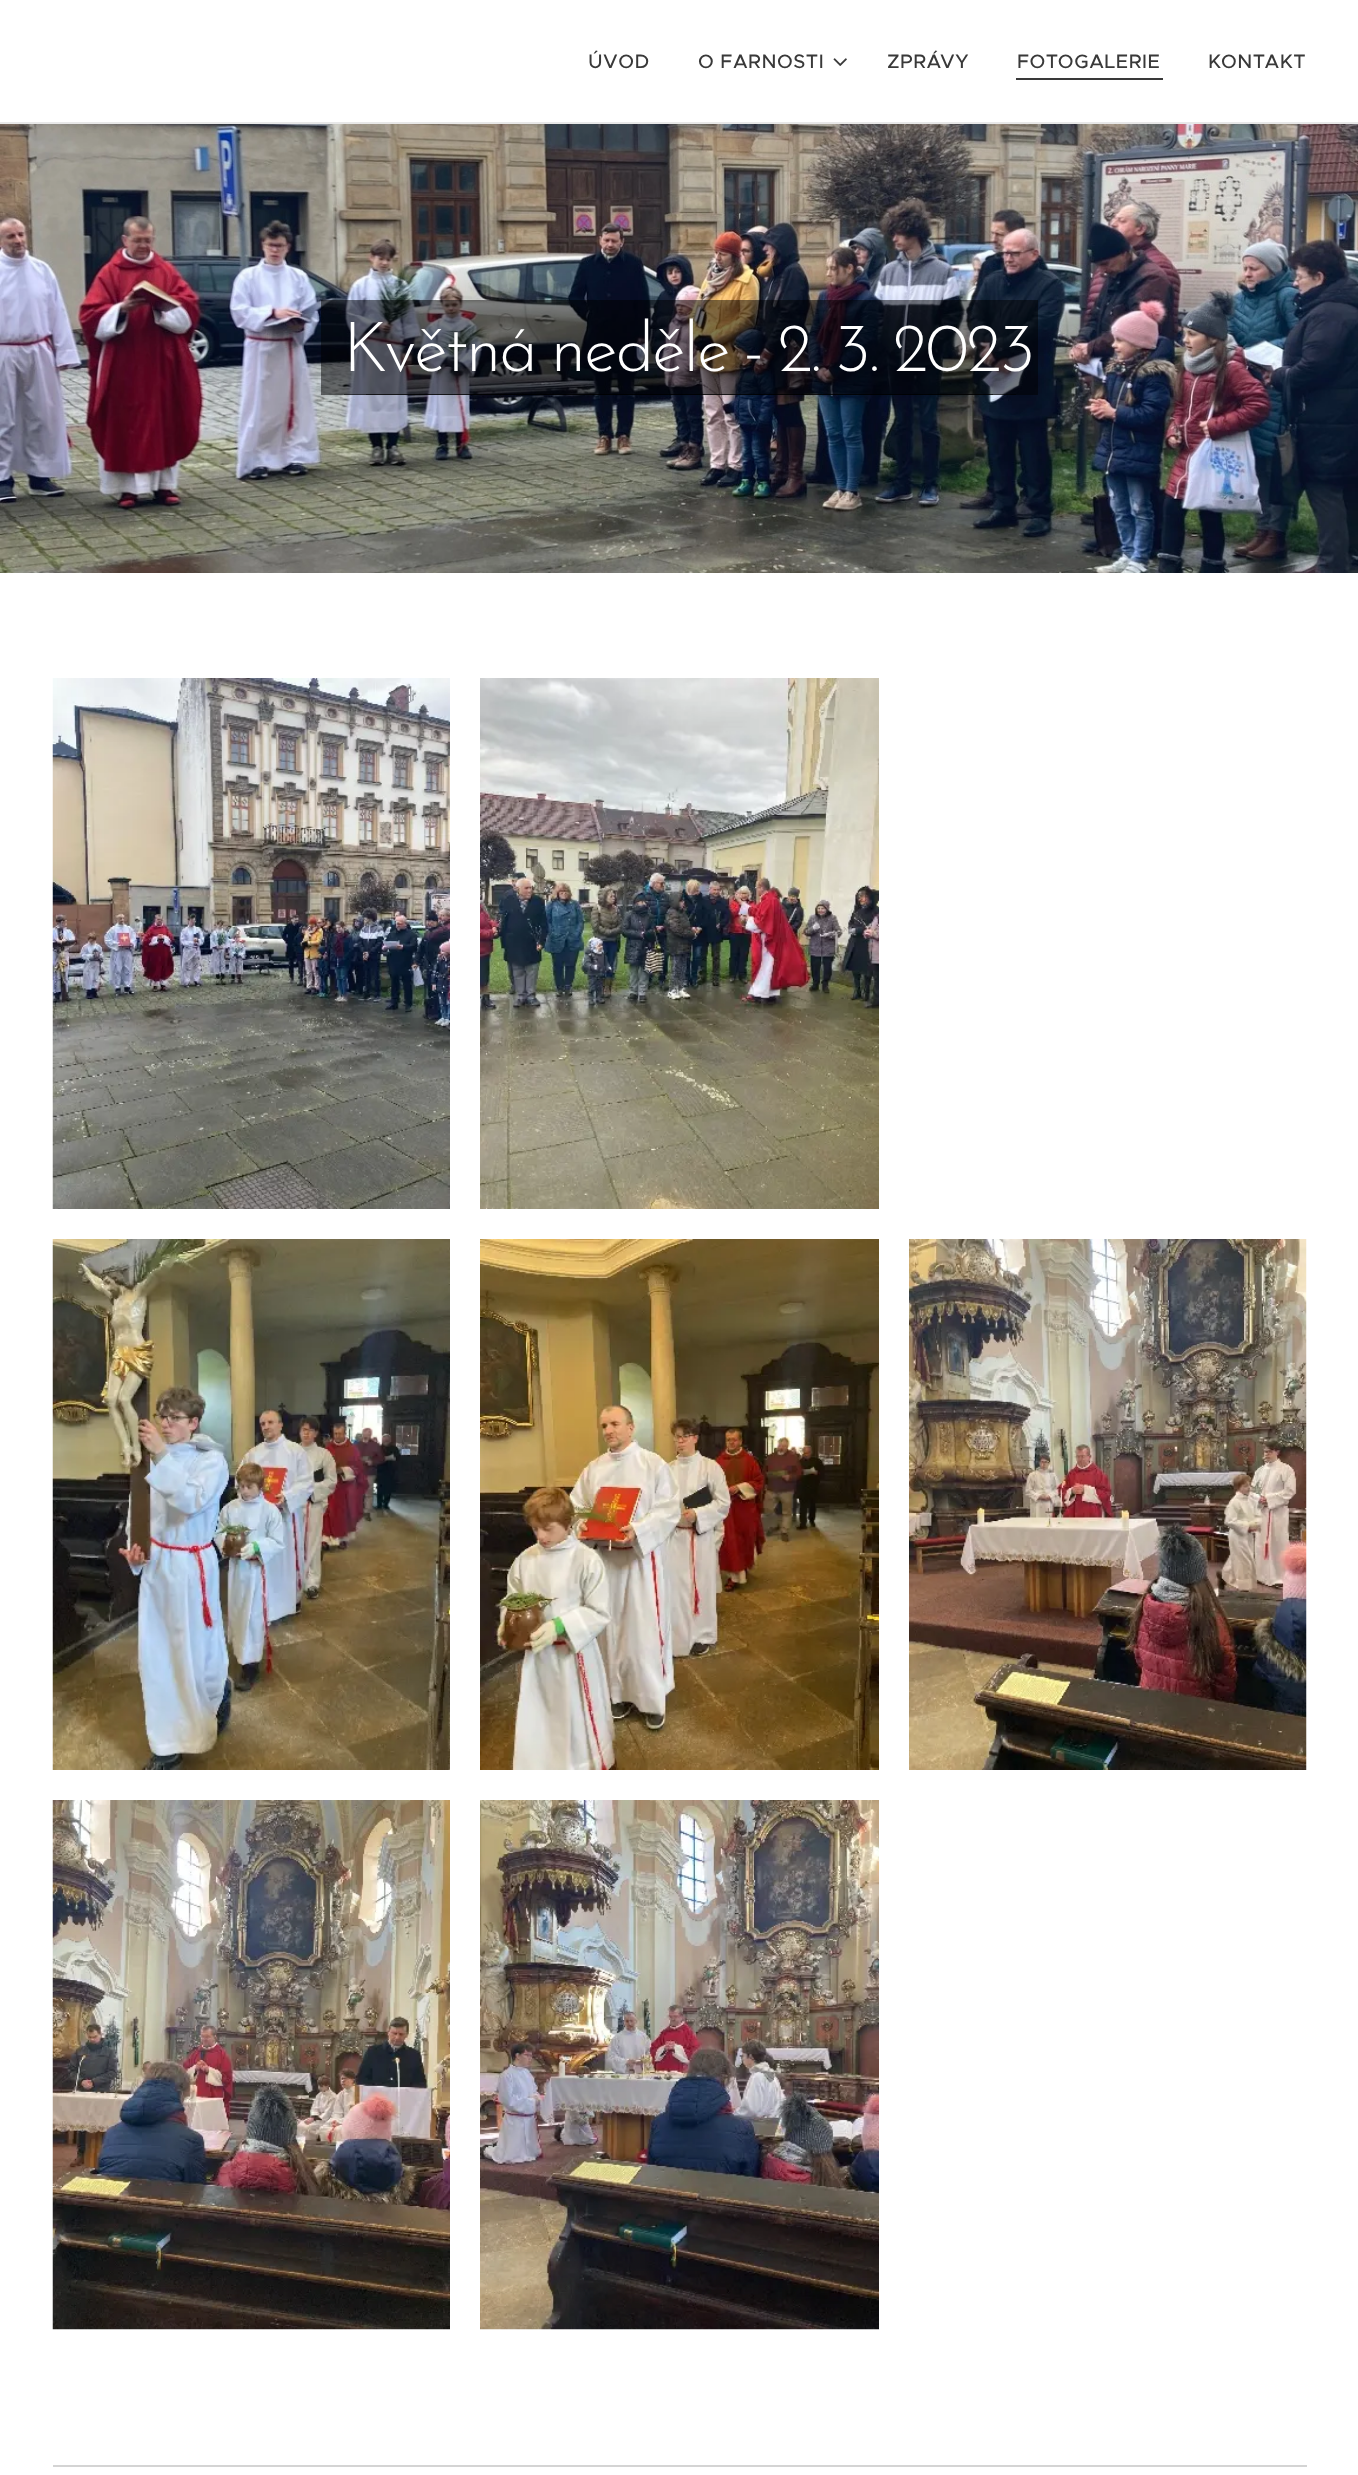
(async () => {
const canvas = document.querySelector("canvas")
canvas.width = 1358
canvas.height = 2475
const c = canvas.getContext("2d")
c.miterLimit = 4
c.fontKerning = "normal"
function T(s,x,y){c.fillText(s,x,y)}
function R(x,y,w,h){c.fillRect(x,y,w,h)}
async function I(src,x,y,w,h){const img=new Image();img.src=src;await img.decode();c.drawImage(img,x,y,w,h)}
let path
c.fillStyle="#fff"
R(0,0,1358,2475)
c.letterSpacing="0.5px"
c.font="500 19.5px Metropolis"
c.fillStyle="#393939"
T("ÚVOD",588,68)
T("O FARNOSTI",698,68)
await I("1.png",833,58,14,8)
T("ZPRÁVY",887,68)
T("FOTOGALERIE",1017,68)
R(1016,78,147,2)
T("KONTAKT",1208,68)
c.fillStyle="#e8e8e8"
R(0,122,1358,2)
await I("2.png",0,124,1358,449)
c.fillStyle="#00000080"
path = new Path2D("M321 300v95h672v-1h-649v-94z")
c.fill(path)
path = new Path2D("M366 394v1h672v-95h-22v94z")
c.fill(path)
R(344,300,672,95)
c.letterSpacing="-2.1px"
c.wordSpacing="-4px"
c.font="300 69px Josefin Sans"
c.fillStyle="#fff"
T("Květná neděle - 2. 3. 2023",343,371)
await I("3.png",52,678,398,531)
await I("4.png",480,678,399,531)
await I("5.png",52,1239,398,531)
await I("6.png",480,1239,399,531)
await I("7.png",909,1239,398,531)
await I("8.png",52,1800,398,530)
await I("9.png",480,1800,399,530)
c.fillStyle="#d4d4d4"
R(53,2465,1254,2)
})()
